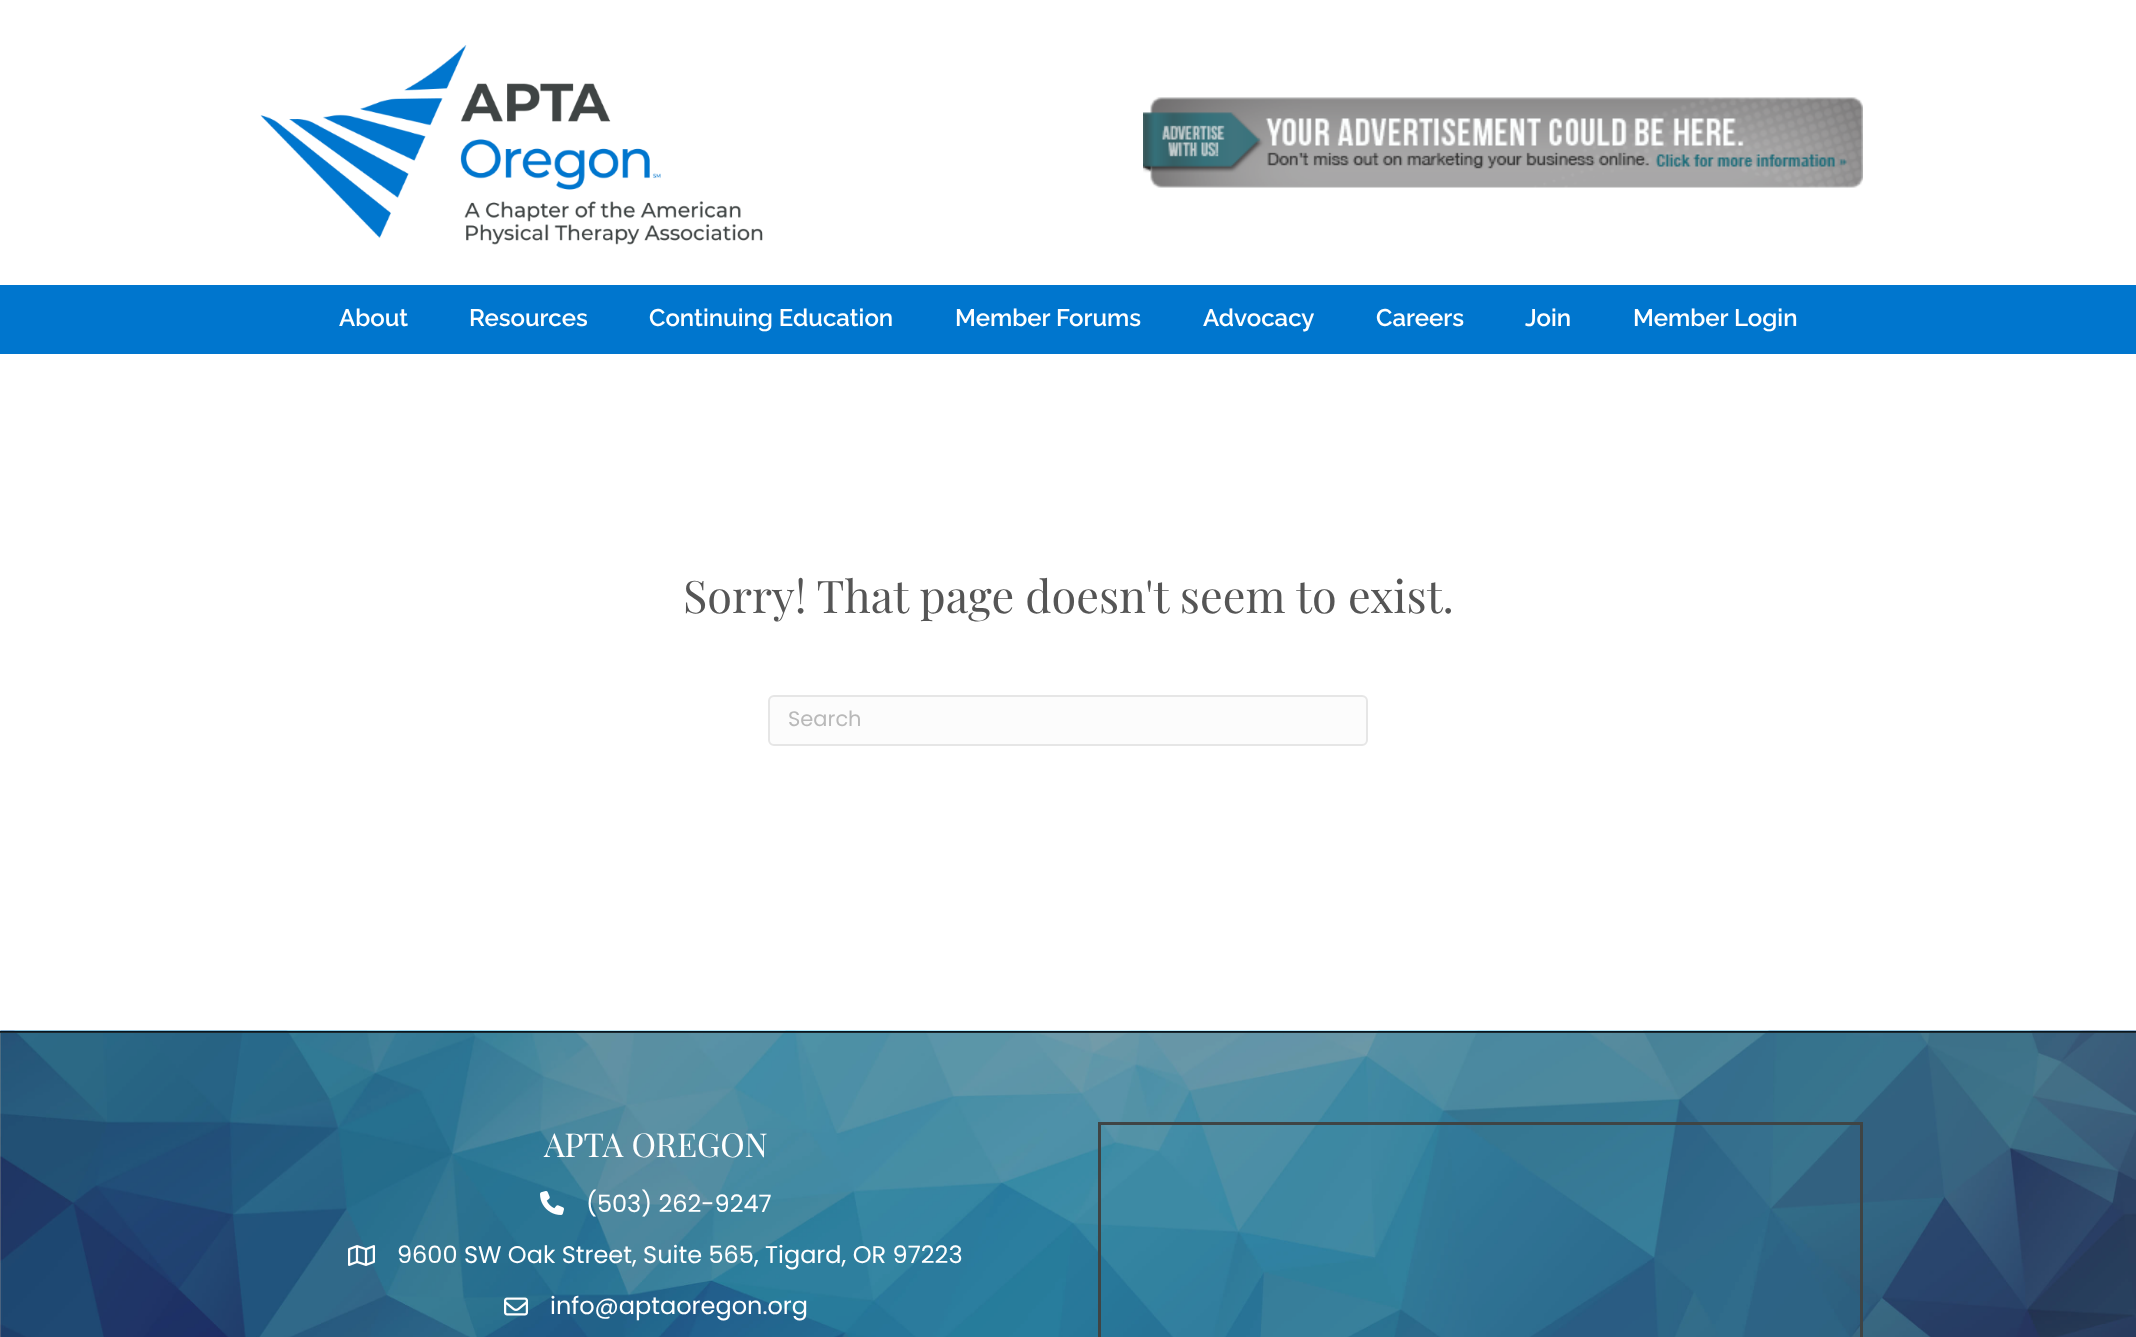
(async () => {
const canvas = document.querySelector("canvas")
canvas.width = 2136
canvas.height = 1337
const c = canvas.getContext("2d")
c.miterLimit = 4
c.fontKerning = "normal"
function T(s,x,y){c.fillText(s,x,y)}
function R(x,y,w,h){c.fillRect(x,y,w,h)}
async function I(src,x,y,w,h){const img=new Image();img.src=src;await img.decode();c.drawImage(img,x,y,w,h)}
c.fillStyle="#fff"
R(0,0,2136,1337)
await I("1.png",260,45,503,200)
await I("2.png",1143,97,720,91)
c.fillStyle="#0076ce"
R(0,285,2136,69)
c.font="100 24px Raleway"
c.fillStyle="#fff"
T("About",339,326)
T("Resources",469,326)
T("Continuing Education",649,326)
T("Member Forums",955,326)
T("Advocacy",1203,326)
T("Careers",1376,326)
T("Join",1525,326)
T("Member Login",1633,326)
c.font="45px Playfair Display"
c.fillStyle="#555"
T("Sorry! That page doesn't seem to exist.",683,613)
c.fillStyle="#fcfcfc"
c.beginPath()
c.roundRect(769,696,598,49,5)
c.fill()
c.strokeStyle="#e6e6e6"
c.lineWidth=2
c.stroke()
c.font="21px Poppins"
c.fillStyle="#b9b9b9"
T("Search",788,726)
await I("3.png",0,1030,2136,307)
c.fillStyle="#051622"
R(0,1031,2136,1)
c.fillStyle="#1f2b31"
R(0,1032,2136,1)
c.font="33px Playfair Display"
c.fillStyle="#fff"
T("APTA OREGON",544,1157)
await I("4.png",540,1191,24,24)
c.font="24px Poppins"
T("(503) 262-9247",586,1212)
await I("5.png",348,1245,27,21)
T("9600 SW Oak Street, Suite 565, Tigard, OR 97223",397,1263)
await I("6.png",504,1297,24,19)
T("info@aptaoregon.org",550,1314)
c.strokeStyle="#3f4444"
c.lineWidth=3
c.strokeRect(1099.5,1123.5,762,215)
})()
